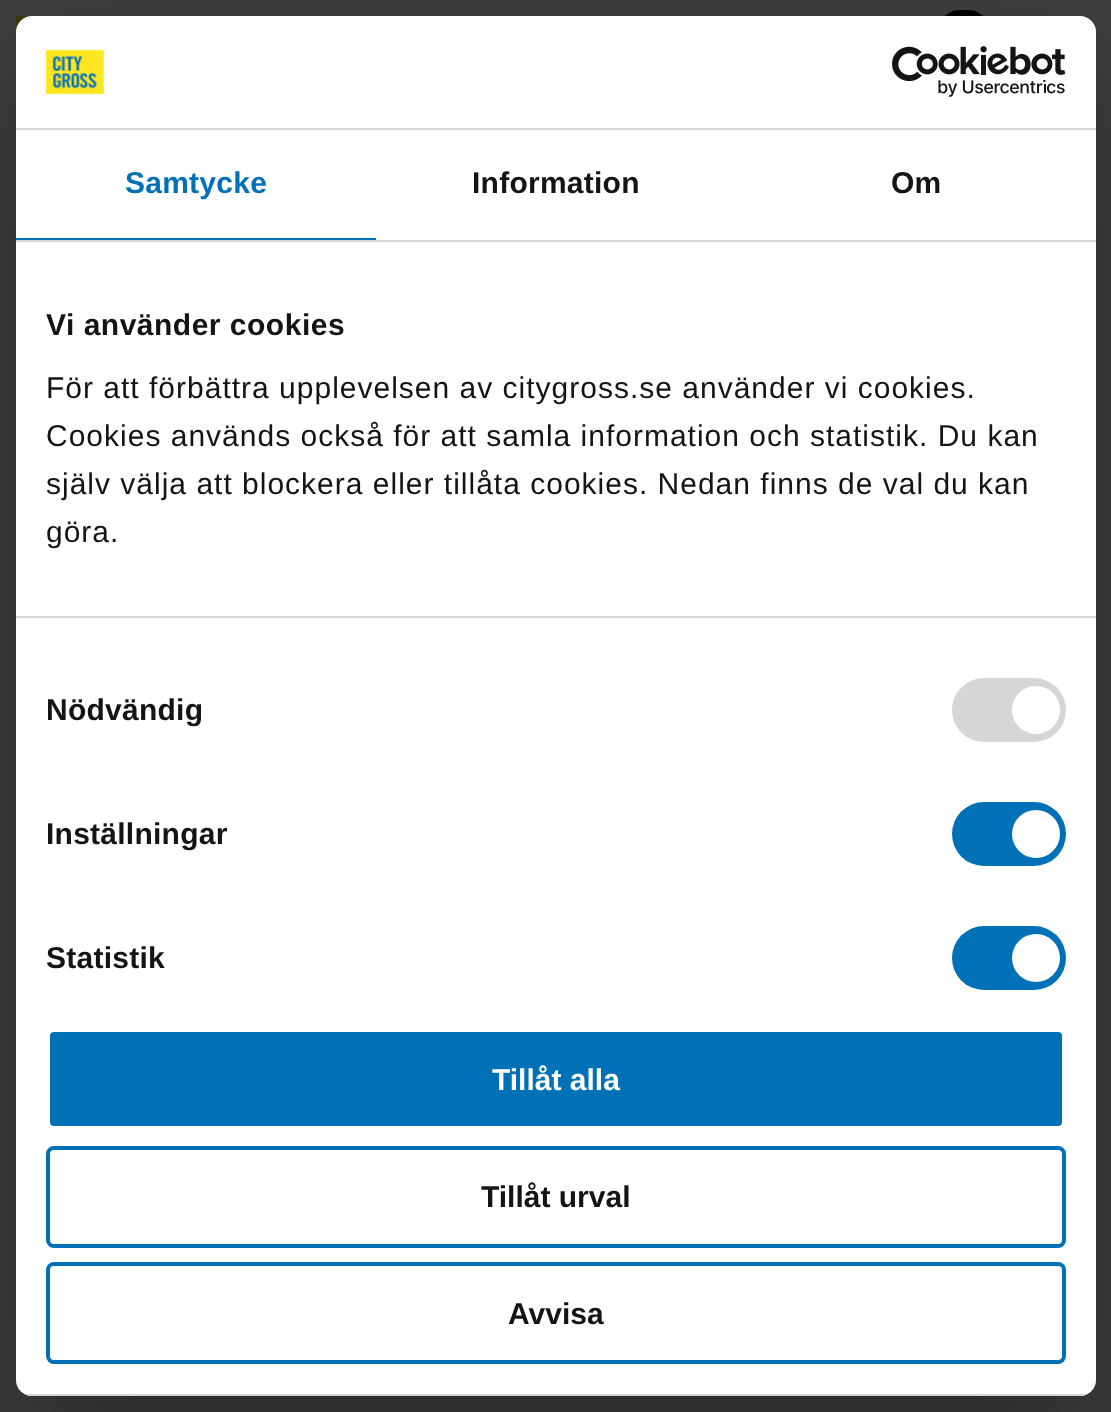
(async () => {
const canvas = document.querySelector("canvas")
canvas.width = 1111
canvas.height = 1412
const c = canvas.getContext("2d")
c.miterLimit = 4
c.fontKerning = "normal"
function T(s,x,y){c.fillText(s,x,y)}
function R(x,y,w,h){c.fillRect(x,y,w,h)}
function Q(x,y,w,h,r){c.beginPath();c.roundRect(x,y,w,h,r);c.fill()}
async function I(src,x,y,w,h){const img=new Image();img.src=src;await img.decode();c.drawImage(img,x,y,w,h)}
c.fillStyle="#3e3e3e"
R(0,0,1111,1412)
await I("1.png",16,16,16,16)
c.fillStyle="#000"
Q(940,10,48,38,19)
c.fillStyle="#0000004d"
c.filter="blur(68px)"
c.beginPath()
c.roundRect(16,80,1080,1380,16)
c.fill()
c.filter="none"
c.fillStyle="#fff"
Q(16,16,1080,1380,16)
c.fillStyle="#d6d6d6"
R(16,128,1080,2)
await I("2.png",46,49,58,45)
await I("3.png",892,46,174,51)
R(16,240,1080,2)
c.fillStyle="#0071b7"
R(16,238,360,2)
c.letterSpacing="0.25px"
c.font="bold 30px Liberation Sans"
T("Samtycke",125,193)
c.fillStyle="#141414"
T("Information",472,193)
T("Om",891,193)
c.fillStyle="#d6d6d6"
R(16,616,1080,2)
c.letterSpacing="0.5px"
c.fillStyle="#141414"
T("Vi använder cookies",46,335)
c.letterSpacing="1px"
c.font="30px Liberation Sans"
T("För att förbättra upplevelsen av citygross.se använder vi cookies.",46,398)
T("Cookies används också för att samla information och statistik. Du kan",46,446)
T("själv välja att blockera eller tillåta cookies. Nedan finns de val du kan",46,494)
T("göra.",46,542)
c.letterSpacing="0.25px"
c.font="bold 30px Liberation Sans"
T("Nödvändig",46,720)
c.fillStyle="#d6d6d6"
Q(952,678,114,64,32)
c.fillStyle="#fff"
c.beginPath()
c.arc(1036,710,24,0,7)
c.fill()
c.fillStyle="#141414"
T("Inställningar",46,844)
c.fillStyle="#0071b7"
Q(952,802,114,64,32)
c.fillStyle="#fff"
c.beginPath()
c.arc(1036,834,24,0,7)
c.fill()
c.fillStyle="#141414"
T("Statistik",46,968)
c.fillStyle="#0071b7"
Q(952,926,114,64,32)
c.fillStyle="#fff"
c.beginPath()
c.arc(1036,958,24,0,7)
c.fill()
c.save()
c.beginPath()
c.roundRect(16,16,1080,1380,16)
c.clip()
c.fillStyle="#d6d6d6"
R(16,1394,1080,2)
c.restore()
c.fillStyle="#0071b7"
c.beginPath()
c.roundRect(48,1030,1016,98,6)
c.fill()
c.strokeStyle="#fff"
c.lineWidth=4
c.stroke()
c.letterSpacing="0px"
c.fillStyle="#fff"
T("Tillåt alla",492,1090)
c.beginPath()
c.roundRect(48,1148,1016,98,6)
c.strokeStyle="#0071b7"
c.stroke()
c.fillStyle="#141414"
T("Tillåt urval",481,1207)
c.beginPath()
c.roundRect(48,1264,1016,98,6)
c.stroke()
T("Avvisa",508,1324)
})()
